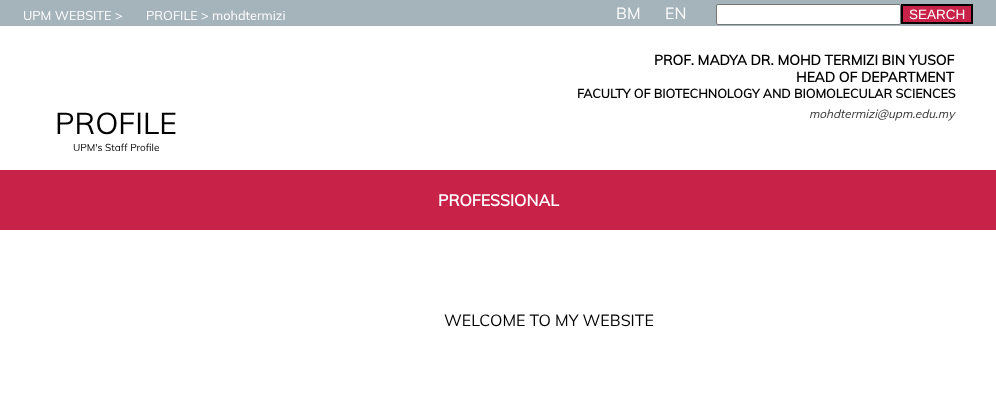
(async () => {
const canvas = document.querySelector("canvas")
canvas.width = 996
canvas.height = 409
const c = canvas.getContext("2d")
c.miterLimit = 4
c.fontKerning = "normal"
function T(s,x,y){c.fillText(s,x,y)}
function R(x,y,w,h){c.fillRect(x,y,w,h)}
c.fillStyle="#fff"
R(0,0,996,409)
c.fillStyle="#a5b3bb"
R(0,0,996,26)
c.font="12.75px Muli"
c.fillStyle="#fff"
T("UPM WEBSITE",23,20)
T(">",115,20)
T("PROFILE",146,20)
T("> mohdtermizi",201,20)
c.font="16px Muli"
T("BM",616,19)
T("EN",665,19)
c.beginPath()
c.roundRect(716.5,4.5,184,20,1.5)
c.fill()
c.strokeStyle="#767676"
c.stroke()
c.fillStyle="#c82249"
c.beginPath()
c.rect(902,5,70,18)
c.fill()
c.strokeStyle="#000"
c.lineWidth=2
c.stroke()
c.font="13.5px Liberation Sans"
c.fillStyle="#fff"
T("SEARCH",909,19)
c.font="bold 13.9px Muli"
c.fillStyle="#000"
T("PROF. MADYA DR. MOHD TERMIZI BIN YUSOF",654,65)
T("HEAD OF DEPARTMENT",796,82)
c.font="bold 12.55px Muli"
T("FACULTY OF BIOTECHNOLOGY AND BIOMOLECULAR SCIENCES",577,98)
c.font="italic 11.8px Muli"
c.fillStyle="#333"
T("mohdtermizi@upm.edu.my",809,118)
c.font="30px Muli"
c.fillStyle="#000"
T("PROFILE",55,134)
c.font="10px Muli"
T("UPM's Staff Profile",73,151)
c.fillStyle="#c82249"
R(0,170,996,60)
c.font="bold 16px Muli"
c.fillStyle="#fff"
T("PROFESSIONAL",438,206)
c.font="16px Muli"
c.fillStyle="#000"
T("WELCOME TO MY WEBSITE",444,326)
})()
